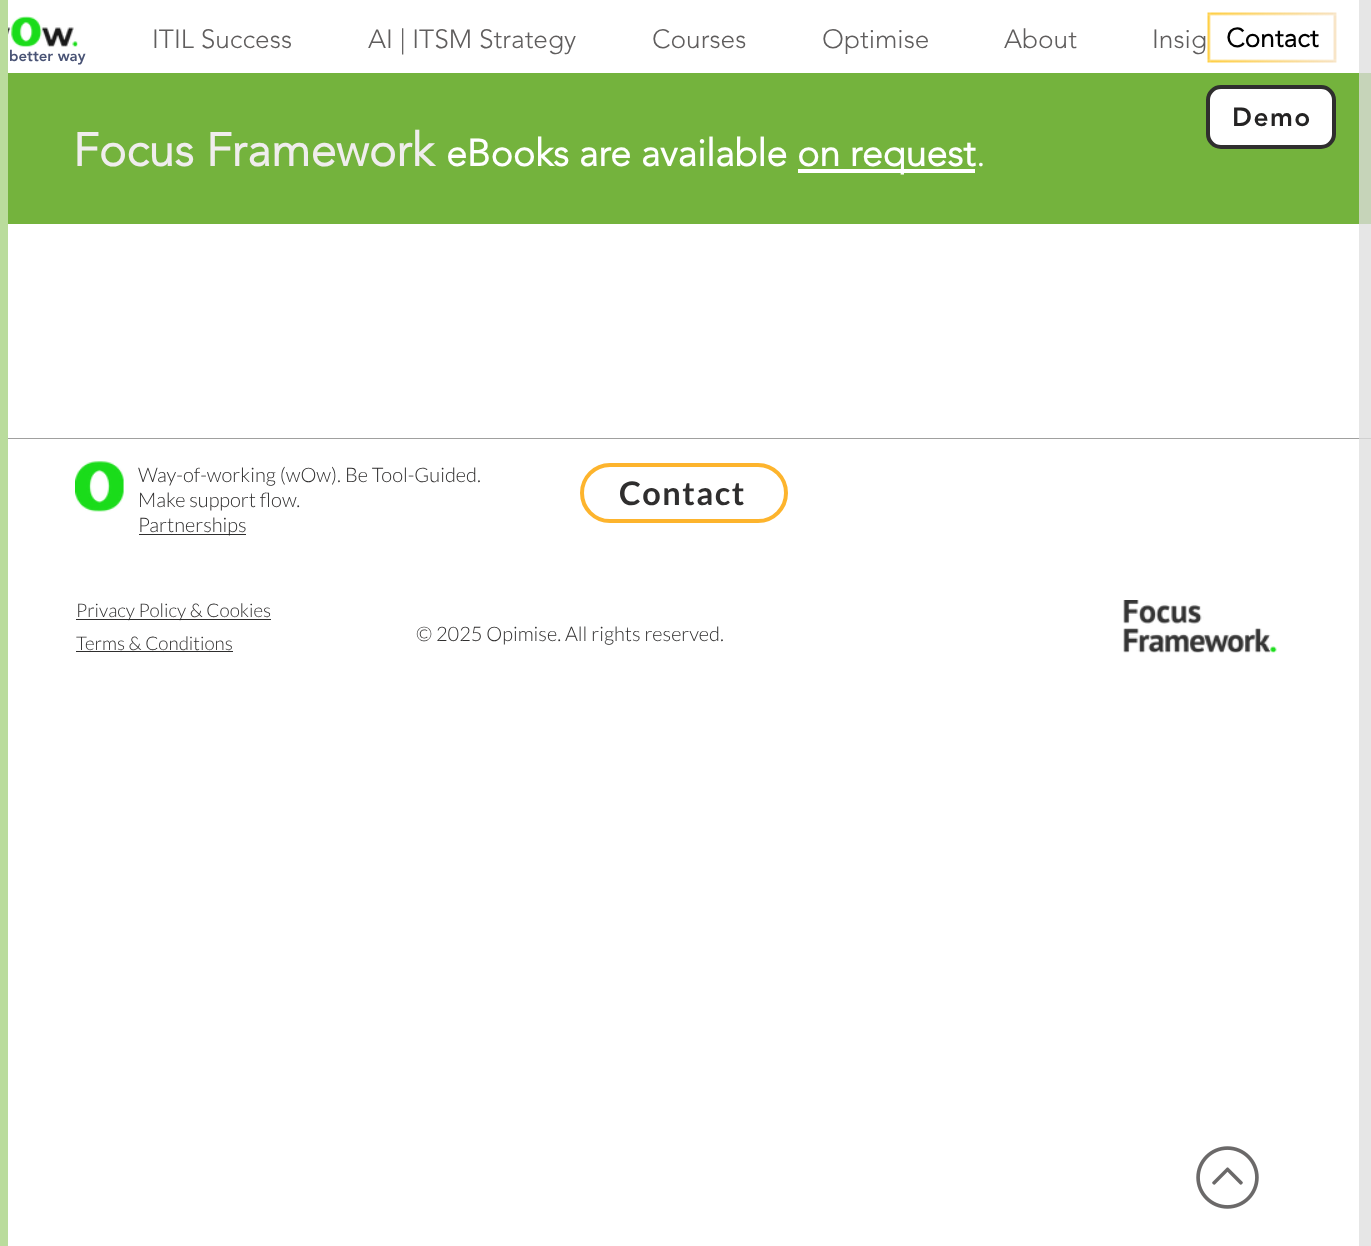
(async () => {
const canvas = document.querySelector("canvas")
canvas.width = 1371
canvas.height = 1246
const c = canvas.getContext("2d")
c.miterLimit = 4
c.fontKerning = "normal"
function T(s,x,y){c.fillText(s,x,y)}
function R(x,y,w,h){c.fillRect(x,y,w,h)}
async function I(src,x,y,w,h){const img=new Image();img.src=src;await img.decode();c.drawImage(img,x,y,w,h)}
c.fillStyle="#fff"
R(0,0,1371,1246)
c.fillStyle="#e6e6e6"
R(1359,0,12,1246)
c.fillStyle="#a0a09f"
R(0,438,1359,1)
c.fillStyle="#badc9c"
R(0,0,8,1246)
await I("1.png",8,16,70,31)
c.font="300 26.25px 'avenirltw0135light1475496'"
c.fillStyle="#605e5e"
T("ITIL Success",152,48)
T("AI | ITSM Strategy",368,48)
T("Courses",652,48)
T("Optimise",822,48)
T("About",1004,48)
T("Insig",1152,48)
c.font="900 15px 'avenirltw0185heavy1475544'"
c.fillStyle="#495375"
T("better way",9,61)
await I("2.png",1207,12,130,51)
c.font="bold 26.25px 'avenirltw0135light1475496'"
c.fillStyle="#000"
T("Contact",1226,47)
c.fillStyle="#74b33d"
R(8,73,1351,151)
c.fillStyle="#fff"
c.beginPath()
c.roundRect(1208,87,126,60,13)
c.fill()
c.strokeStyle="#2f2e2e"
c.lineWidth=4
c.stroke()
c.letterSpacing="1.5px"
c.font="900 26.25px 'avenirltw0185heavy1475544'"
c.fillStyle="#242323"
T("Demo",1232,126)
c.fillStyle="#c6d4b9"
R(1359,73,12,151)
c.letterSpacing="0px"
c.font="bold 46.25px 'avenirltw0135light1475496'"
c.fillStyle="#f0eded"
T("Focus Framework",73,166)
c.font="bold 37.5px 'avenirltw0135light1475496'"
c.fillStyle="#fff"
T("eBooks are available",446,166)
R(798,169,177,4)
T("on request",797,166)
c.font="300 37.5px 'avenirltw0135light1475496'"
T(".",976,166)
c.fillStyle="#d0d0d0"
R(1359,438,12,1)
await I("3.png",75,461,49,51)
c.font="300 20px Lato"
c.fillStyle="#2f2e2e"
T("Way-of-working (wOw). Be Tool-Guided.",138,482)
T("Make support flow.",138,507)
R(139,534,107,1)
T("Partnerships",138,532)
c.beginPath()
c.roundRect(582,465,204,56,28)
c.strokeStyle="#fdb42d"
c.stroke()
c.letterSpacing="1.5px"
c.font="bold 32.5px Lato"
T("Contact",619,505)
R(76,619,195,1)
c.letterSpacing="0px"
c.font="300 18.75px Lato"
T("Privacy Policy & Cookies",76,617)
await I("4.png",1123,600,154,53)
T("Terms & Conditions",76,650)
R(76,651,157,1)
c.font="300 20px Lato"
T("© 2025 Opimise. All rights reserved.",416,641)
await I("5.png",1196,1146,63,63)
})()
